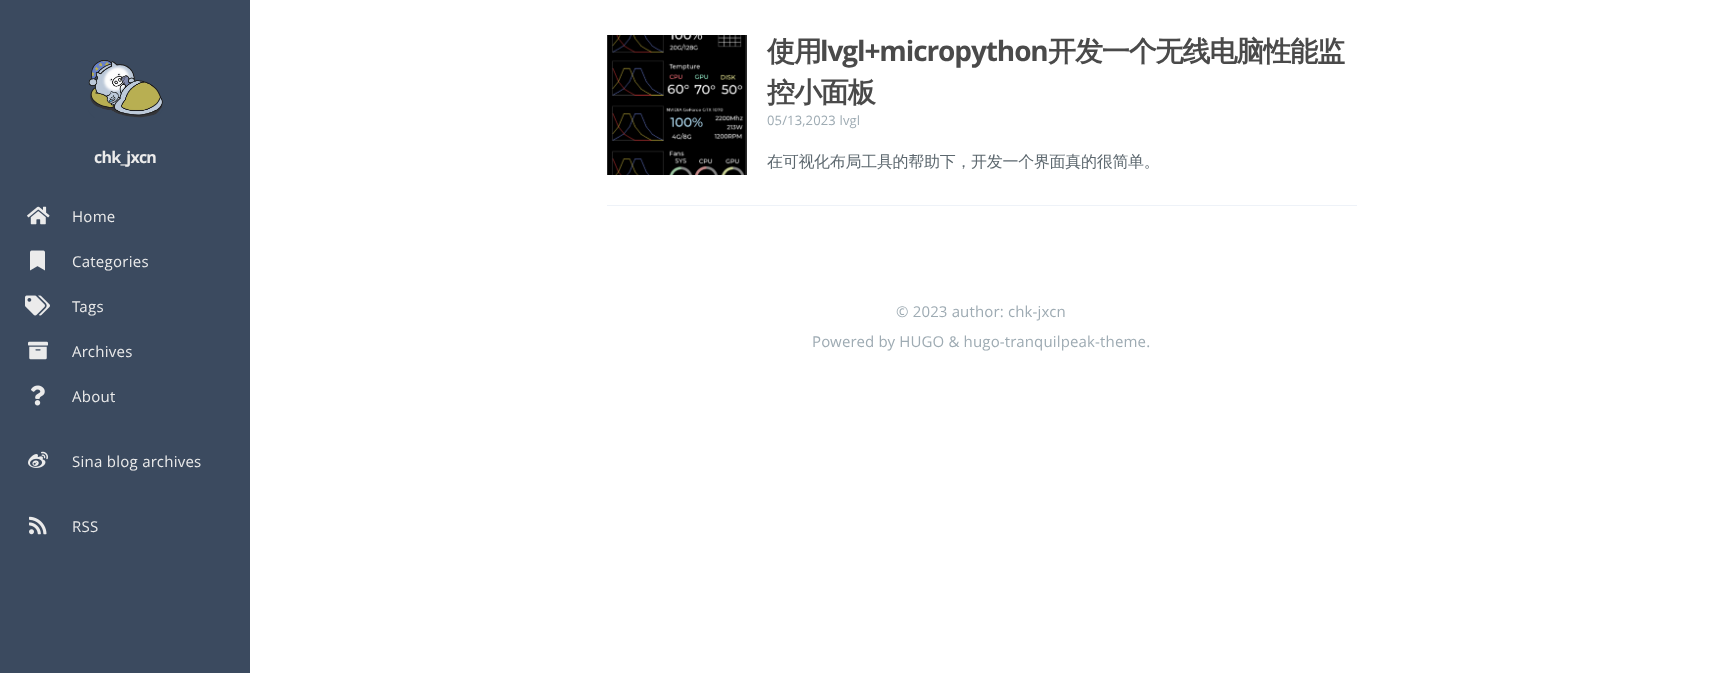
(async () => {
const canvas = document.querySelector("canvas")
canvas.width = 1713
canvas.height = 673
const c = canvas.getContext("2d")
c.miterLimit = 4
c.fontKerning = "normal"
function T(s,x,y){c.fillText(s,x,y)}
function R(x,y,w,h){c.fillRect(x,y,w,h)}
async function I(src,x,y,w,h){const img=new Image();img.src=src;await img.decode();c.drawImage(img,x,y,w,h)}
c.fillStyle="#3b4a5f"
R(0,0,1713,673)
await I("1.png",88,60,75,58)
c.letterSpacing="-0.75px"
c.font="bold 16px Open Sans"
c.fillStyle="#ebebeb"
T("chk_jxcn",94,163)
await I("2.png",27,206,23,19)
c.letterSpacing="0.25px"
c.font="15px Open Sans"
T("Home",72,222)
await I("3.png",30,250,15,21)
T("Categories",72,267)
await I("4.png",25,295,25,21)
T("Tags",72,312)
await I("5.png",28,341,20,19)
T("Archives",72,357)
await I("6.png",31,385,14,21)
T("About",72,402)
await I("7.png",28,451,20,17)
T("Sina blog archives",72,467)
await I("8.png",29,516,18,19)
T("RSS",72,532)
c.fillStyle="#fff"
R(250,0,1463,673)
c.fillStyle="#eef2f8"
R(607,205,750,1)
await I("9.png",607,35,140,140)
c.letterSpacing="-1.1px"
c.font="bold 28px WenQuanYi Zen Hei"
c.fillStyle="#4a4a4a"
T("使用",767,61)
c.font="bold 28px Open Sans"
T("lvgl+micropython",820,61)
c.font="bold 28px WenQuanYi Zen Hei"
T("开发一个无线电脑性能监",1048,61)
T("控小面板",767,102)
c.letterSpacing="0.15px"
c.font="13px Open Sans"
c.fillStyle="#9eabb3"
T("05/13,2023 lvgl",767,125)
c.letterSpacing="-0.3px"
c.font="500 16px WenQuanYi Zen Hei"
c.fillStyle="#5d686f"
T("在可视化布局工具的帮助下，开发一个界面真的很简单。",767,167)
c.letterSpacing="0.15px"
c.font="15px Open Sans"
c.fillStyle="#9eabb3"
T("© 2023 author: chk-jxcn",896,317)
T("Powered by HUGO & hugo-tranquilpeak-theme.",812,347)
})()
